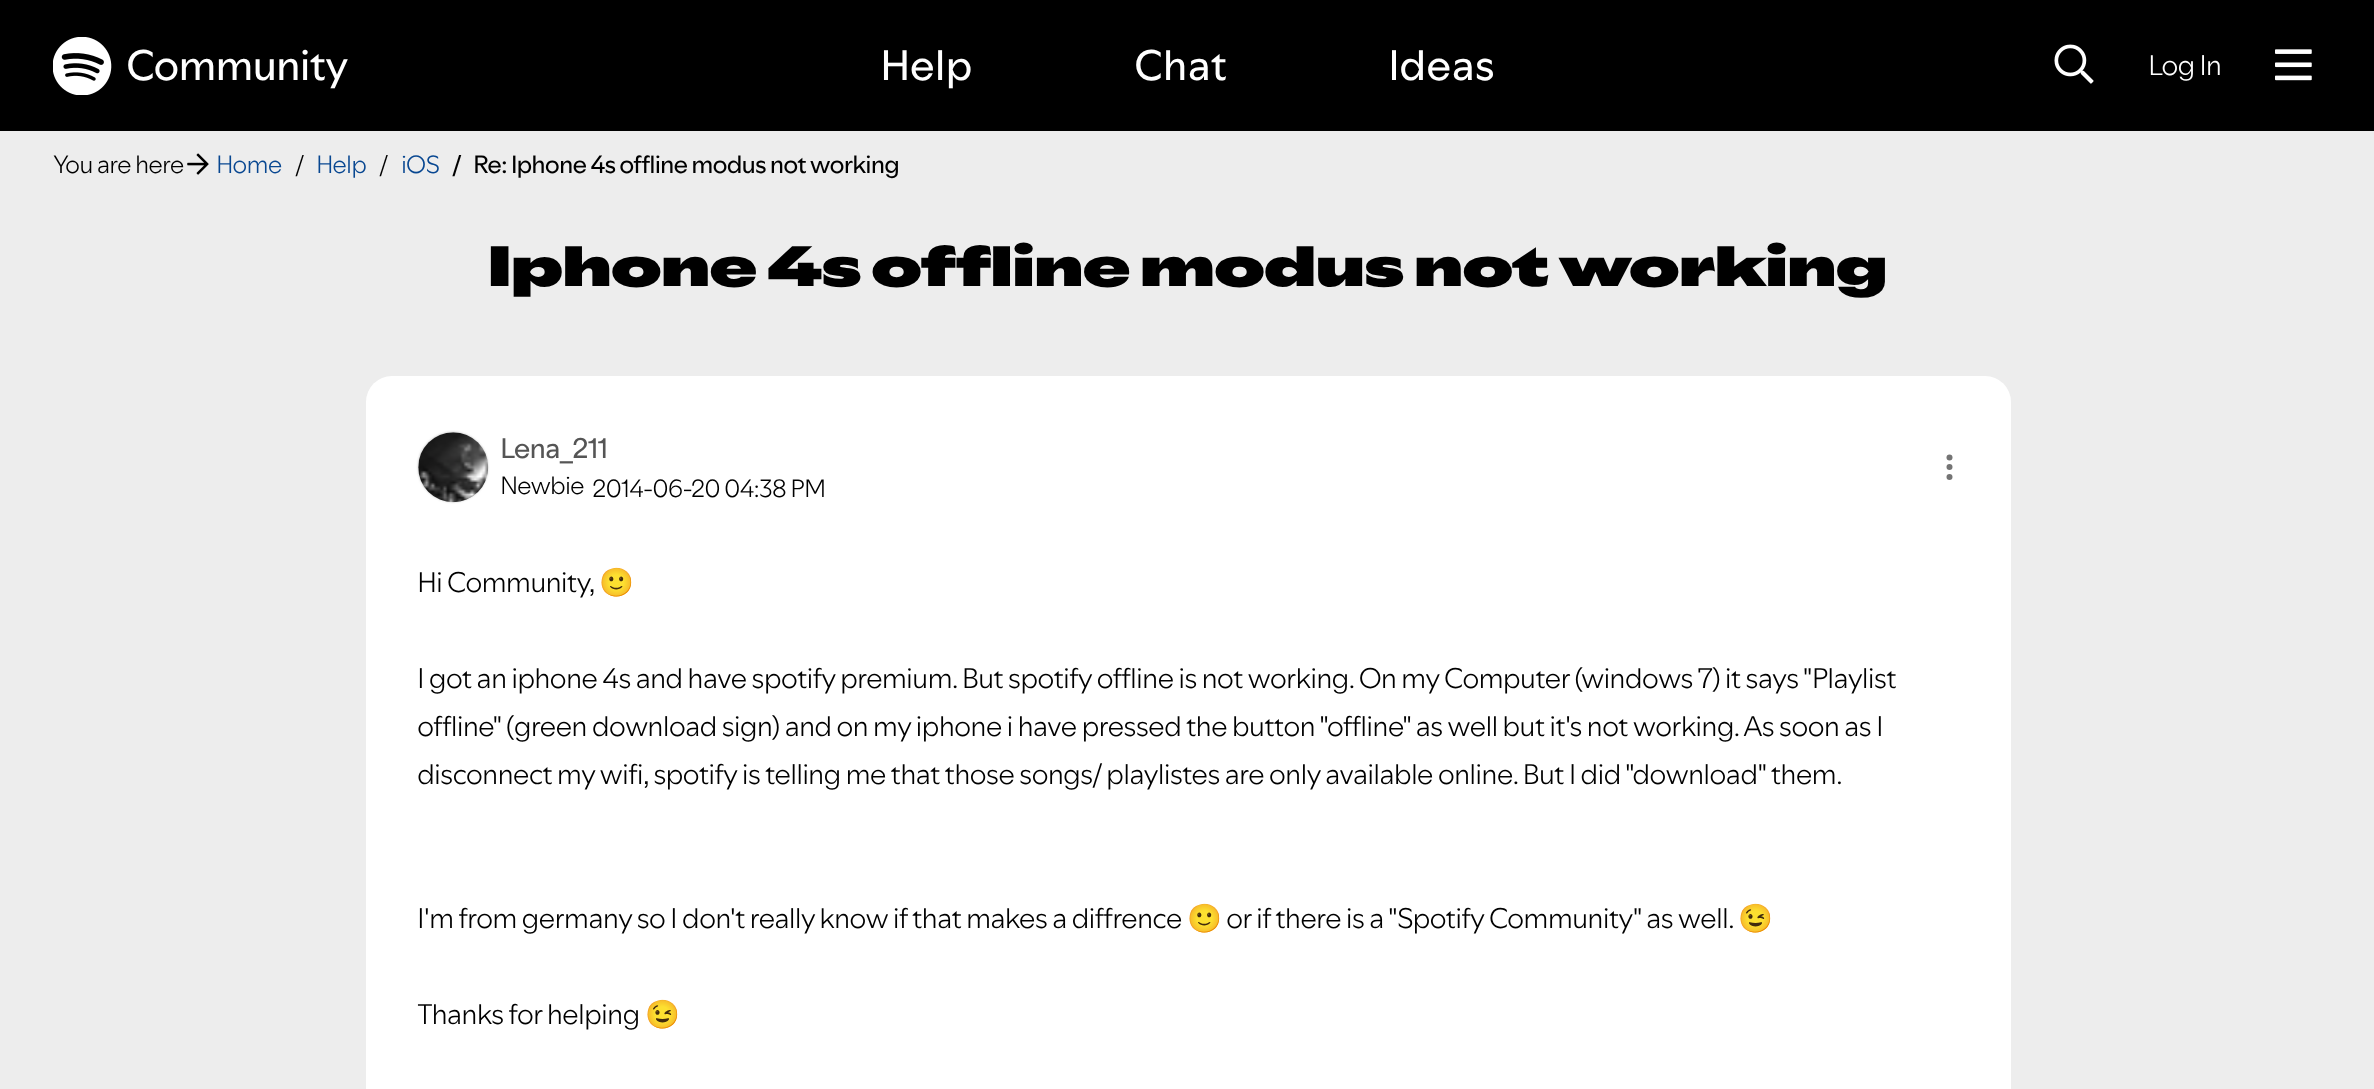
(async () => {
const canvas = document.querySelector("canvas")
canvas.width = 2374
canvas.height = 1089
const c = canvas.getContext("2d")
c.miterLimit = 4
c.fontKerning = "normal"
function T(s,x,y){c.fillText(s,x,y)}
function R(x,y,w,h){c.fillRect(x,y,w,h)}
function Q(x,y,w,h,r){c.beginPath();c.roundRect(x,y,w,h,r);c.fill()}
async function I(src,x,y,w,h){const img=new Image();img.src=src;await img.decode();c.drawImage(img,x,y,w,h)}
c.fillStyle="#ededed"
R(0,0,2374,1089)
c.fillStyle="#000"
R(0,0,2374,131)
await I("1.png",53,37,59,58)
c.letterSpacing="-0.88px"
c.font="42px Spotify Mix"
c.fillStyle="#fff"
T("Community",126,80)
c.letterSpacing="0px"
T("Help",880,80)
T("Chat",1134,80)
T("Ideas",1388,80)
await I("2.png",2054,44,40,40)
c.letterSpacing="-0.88px"
c.font="300 28px Spotify Mix"
T("Log In",2148,75)
await I("3.png",2275,49,37,32)
c.font="300 24.5px Spotify Mix"
c.fillStyle="#000"
T("You are here",53,173)
await I("4.png",187,153,22,22)
c.fillStyle="#084791"
T("Home",216,173)
c.fillStyle="#000"
T("/",295,173)
c.fillStyle="#084791"
T("Help",316,173)
c.fillStyle="#000"
T("/",379,173)
c.fillStyle="#084791"
T("iOS",401,173)
c.font="24.5px Spotify Mix"
c.fillStyle="#000"
T("/",452,173)
T("Re: Iphone 4s offline modus not working",473,173)
c.font="900 56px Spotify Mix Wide"
T("Iphone 4s offline modus not working",487,286)
c.fillStyle="#fff"
Q(366,376,1645,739,26)
c.fillStyle="#c4c4c4"
c.filter="blur(1px)"
c.beginPath()
c.roundRect(418,432,70,70,35)
c.fill()
c.filter="none"
await I("5.png",418,432,71,71)
c.font="28px Spotify Mix"
c.fillStyle="#555"
T("Lena_211",500,458)
c.font="300 24.5px Spotify Mix"
c.fillStyle="#000"
T("Newbie",500,494)
T("2014-06-20",592,497)
T("04:38 PM",724,497)
c.fillStyle="#747474"
c.beginPath()
c.arc(1949.5,457.5,3,0,7)
c.fill()
c.beginPath()
c.arc(1949.5,467,3,0,7)
c.fill()
c.beginPath()
c.arc(1949.5,477,3,0,7)
c.fill()
c.font="300 28px Spotify Mix"
c.fillStyle="#000"
T("Hi Community,",417,592)
c.font="28px Noto Color Emoji"
T("🙂",599,592)
c.font="300 28px Spotify Mix"
T("I got an iphone 4s and have spotify premium. But spotify offline is not working. On my Computer (windows 7) it says \"Playlist",417,688)
T("offline\" (green download sign) and on my iphone i have pressed the button \"offline\" as well but it's not working. As soon as I",417,736)
T("disconnect my wifi, spotify is telling me that those songs/ playlistes are only available online. But I did \"download\" them.",417,784)
T("I'm from germany so I don't really know if that makes a diffrence",417,928)
c.font="28px Noto Color Emoji"
T("🙂",1187,928)
c.font="300 28px Spotify Mix"
T("or if there is a \"Spotify Community\" as well.",1226,928)
c.font="28px Noto Color Emoji"
T("😉",1738,928)
c.font="300 28px Spotify Mix"
T("Thanks for helping",417,1024)
c.font="28px Noto Color Emoji"
T("😉",645,1024)
})()
